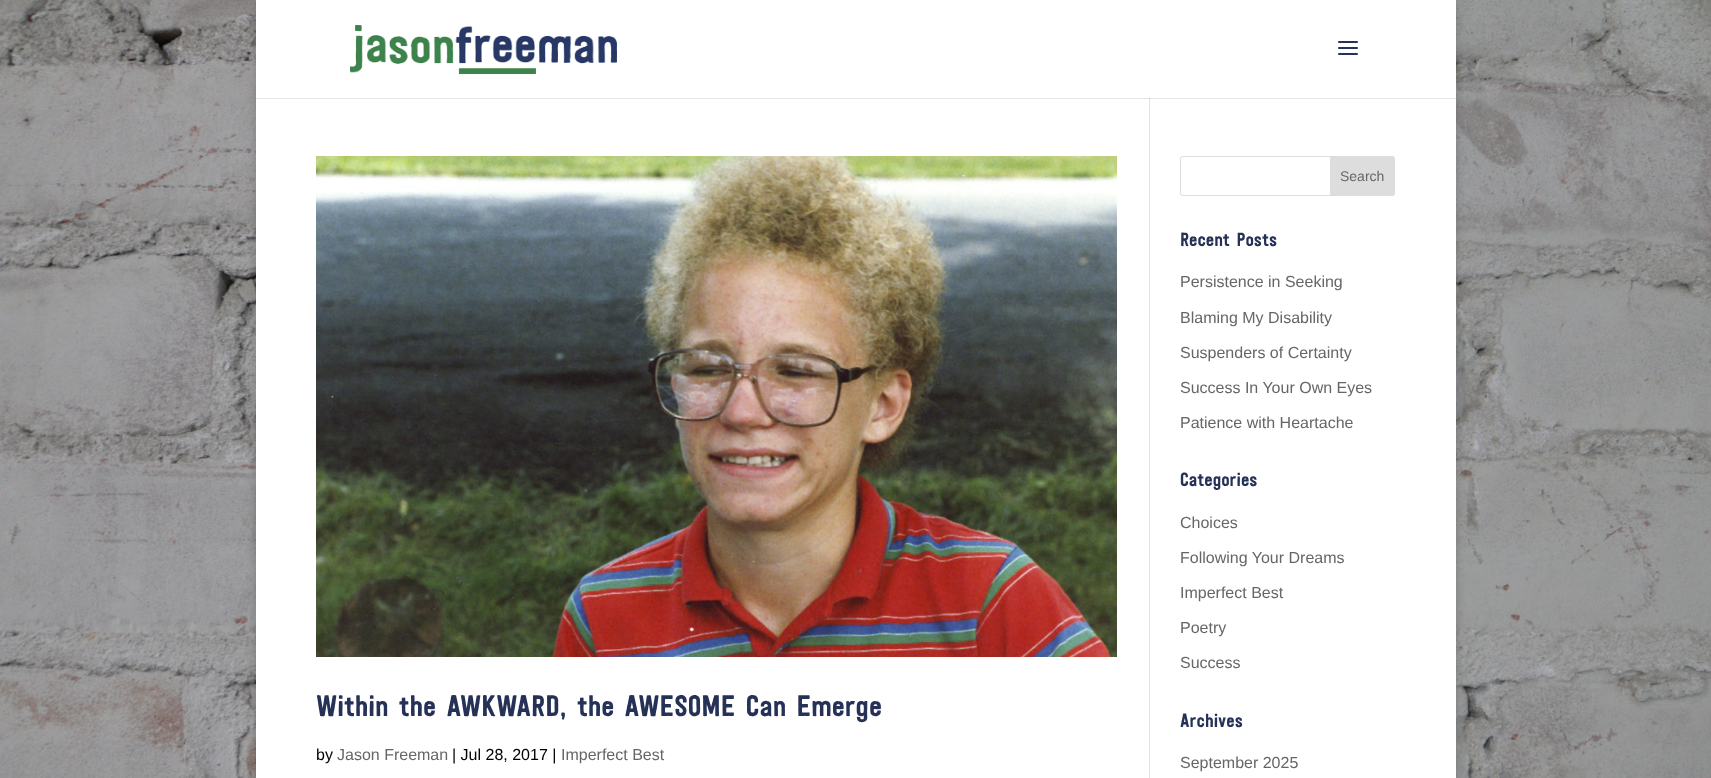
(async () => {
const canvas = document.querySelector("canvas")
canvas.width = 1711
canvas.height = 778
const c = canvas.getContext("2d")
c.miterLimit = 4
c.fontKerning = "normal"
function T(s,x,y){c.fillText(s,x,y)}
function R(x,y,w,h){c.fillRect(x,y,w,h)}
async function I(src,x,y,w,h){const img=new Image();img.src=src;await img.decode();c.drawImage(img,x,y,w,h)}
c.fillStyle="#fff"
R(0,0,1711,778)
await I("1.png",0,0,1711,778)
c.fillStyle="#00000033"
c.filter="blur(5px)"
c.beginPath()
c.rect(256,0,1200,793)
c.fill()
c.filter="none"
c.fillStyle="#fff"
R(256,0,1200,778)
c.fillStyle="#e2e2e2"
R(1149,98,1,680)
c.fillStyle="#0000001a"
R(256,98,1200,1)
await I("2.png",350,25,267,49)
await I("3.png",1338,41,20,14)
await I("4.png",316,156,801,501)
c.font="29.5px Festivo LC"
c.fillStyle="#263157"
T("Within the AWKWARD, the AWESOME Can Emerge",316,716)
c.font="16px Liberation Sans"
c.fillStyle="#000"
T("by",316,760)
c.fillStyle="#666"
T("Jason Freeman",337,760)
c.fillStyle="#000"
T("| Jul 28, 2017 |",452,760)
c.fillStyle="#666"
T("Imperfect Best",561,760)
c.beginPath()
c.roundRect(1180.5,156.5,214,39,2.5)
c.strokeStyle="#ddd"
c.stroke()
c.fillStyle="#ddd"
c.beginPath()
c.roundRect(1330.5,156.5,64,39,[0,2.5,2.5,0])
c.fill()
c.stroke()
c.font="14px Liberation Sans"
c.fillStyle="#666"
T("Search",1340,181)
c.font="19px Festivo LC"
c.fillStyle="#263157"
T("Recent Posts",1180,246)
c.font="16px Liberation Sans"
c.fillStyle="#666"
T("Persistence in Seeking",1180,287)
T("Blaming My Disability",1180,323)
T("Suspenders of Certainty",1180,358)
T("Success In Your Own Eyes",1180,393)
T("Patience with Heartache",1180,428)
c.font="19px Festivo LC"
c.fillStyle="#263157"
T("Categories",1180,486)
c.font="16px Liberation Sans"
c.fillStyle="#666"
T("Choices",1180,528)
T("Following Your Dreams",1180,563)
T("Imperfect Best",1180,598)
T("Poetry",1180,633)
T("Success",1180,668)
c.font="19px Festivo LC"
c.fillStyle="#263157"
T("Archives",1180,727)
c.font="16px Liberation Sans"
c.fillStyle="#666"
T("September 2025",1180,768)
})()
